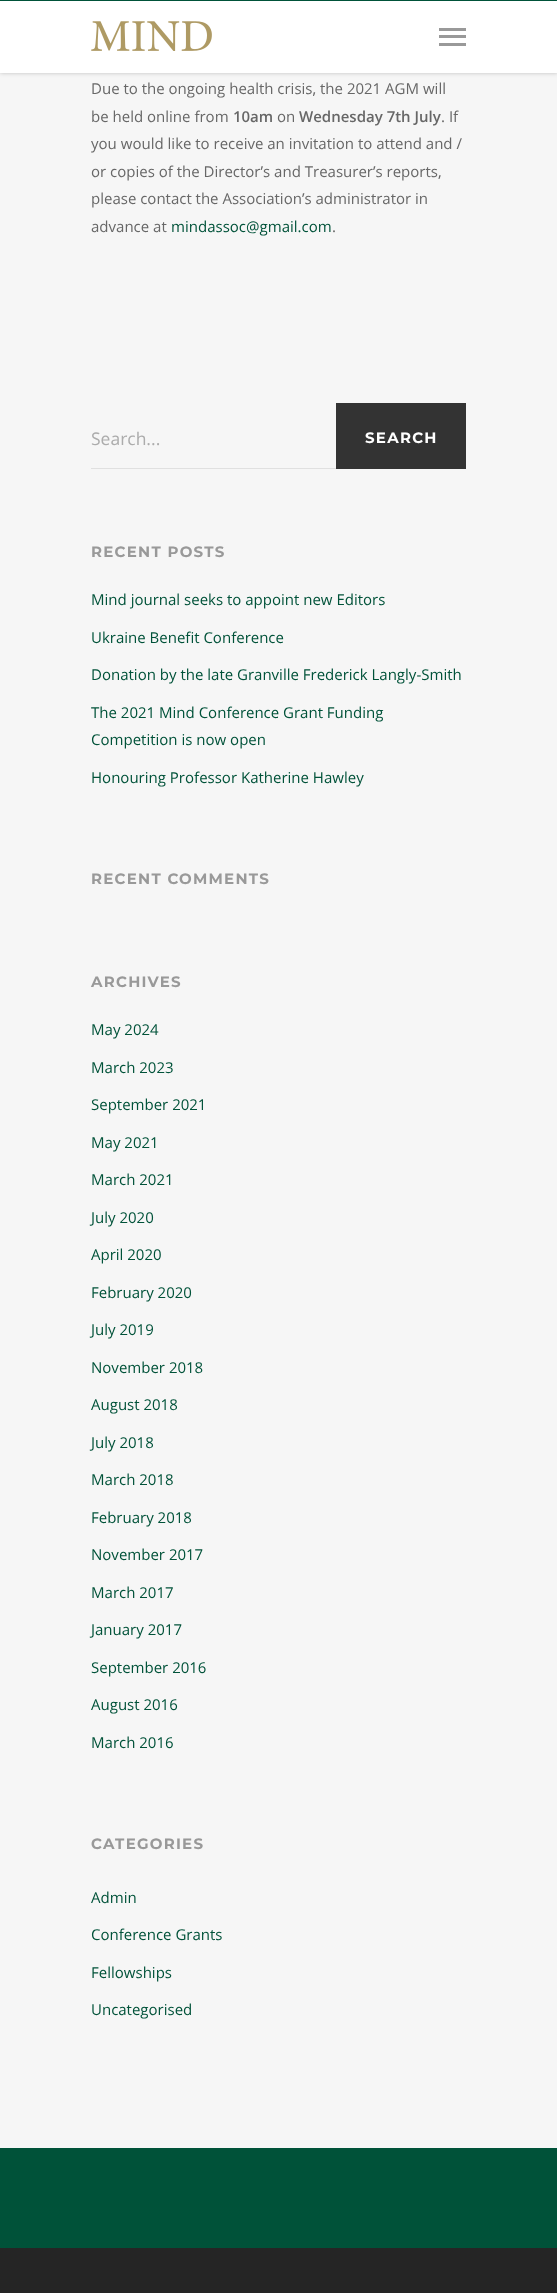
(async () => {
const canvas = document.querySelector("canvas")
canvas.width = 557
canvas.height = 2293
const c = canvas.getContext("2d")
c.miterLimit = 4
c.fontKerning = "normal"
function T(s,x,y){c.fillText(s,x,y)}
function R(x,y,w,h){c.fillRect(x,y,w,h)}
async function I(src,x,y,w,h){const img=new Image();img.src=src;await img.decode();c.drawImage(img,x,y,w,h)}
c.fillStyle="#252525"
R(0,0,557,2293)
c.fillStyle="#f6f6f6"
R(0,73,557,2075)
c.fillStyle="#00000038"
c.filter="blur(2px)"
c.beginPath()
c.rect(0,0,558,73)
c.fill()
c.filter="none"
c.fillStyle="#fff"
R(0,1,557,72)
await I("1.png",91,21,121,30)
c.fillStyle="#999"
R(439,28,27,3)
R(439,43,27,3)
R(439,35,27,3)
c.fillStyle="#005239"
R(0,0,557,1)
c.font="15px Open Sans"
c.fillStyle="#676767"
T("Due to the ongoing health crisis, the 2021 AGM will",91,94)
T("be held online from",91,122)
c.font="600 15px Open Sans"
T("10am",233,122)
c.font="15px Open Sans"
T("on",277,122)
c.font="600 15px Open Sans"
T("Wednesday 7th July",299,122)
c.font="15px Open Sans"
T(". If",441,122)
T("you would like to receive an invitation to attend and /",91,149)
T("or copies of the Director’s and Treasurer’s reports,",91,177)
T("please contact the Association’s administrator in",91,204)
T("advance at",91,232)
c.fillStyle="#005239"
T("mindassoc@gmail.com",171,232)
c.fillStyle="#676767"
T(".",332,232)
c.font="17.5px Open Sans"
c.fillStyle="#acacac"
T("Search...",91,445)
c.fillStyle="#e0e0e0"
R(91,468,245,1)
c.fillStyle="#333"
R(336,403,130,66)
c.letterSpacing="1.25px"
c.font="100 15px Montserrat"
c.fillStyle="#fff"
T("SEARCH",365,443)
c.fillStyle="#999"
T("RECENT POSTS",91,557)
c.letterSpacing="0px"
c.font="15px Open Sans"
c.fillStyle="#005239"
T("Mind journal seeks to appoint new Editors",91,605)
T("Ukraine Benefit Conference",91,643)
T("Donation by the late Granville Frederick Langly-Smith",91,680)
T("The 2021 Mind Conference Grant Funding",91,718)
T("Competition is now open",91,745)
T("Honouring Professor Katherine Hawley",91,783)
c.letterSpacing="1.25px"
c.font="100 15px Montserrat"
c.fillStyle="#999"
T("RECENT COMMENTS",91,884)
T("ARCHIVES",91,987)
c.letterSpacing="0px"
c.font="15px Open Sans"
c.fillStyle="#005239"
T("May 2024",91,1035)
T("March 2023",91,1073)
T("September 2021",91,1110)
T("May 2021",91,1148)
T("March 2021",91,1185)
T("July 2020",91,1223)
T("April 2020",91,1260)
T("February 2020",91,1298)
T("July 2019",91,1335)
T("November 2018",91,1373)
T("August 2018",91,1410)
T("July 2018",91,1448)
T("March 2018",91,1485)
T("February 2018",91,1523)
T("November 2017",91,1560)
T("March 2017",91,1598)
T("January 2017",91,1635)
T("September 2016",91,1673)
T("August 2016",91,1710)
T("March 2016",91,1748)
c.letterSpacing="1.25px"
c.font="100 15px Montserrat"
c.fillStyle="#999"
T("CATEGORIES",91,1849)
c.letterSpacing="0px"
c.font="15px Open Sans"
c.fillStyle="#005239"
T("Admin",91,1903)
T("Conference Grants",91,1940)
T("Fellowships",91,1978)
T("Uncategorised",91,2015)
R(0,2148,557,100)
})()
